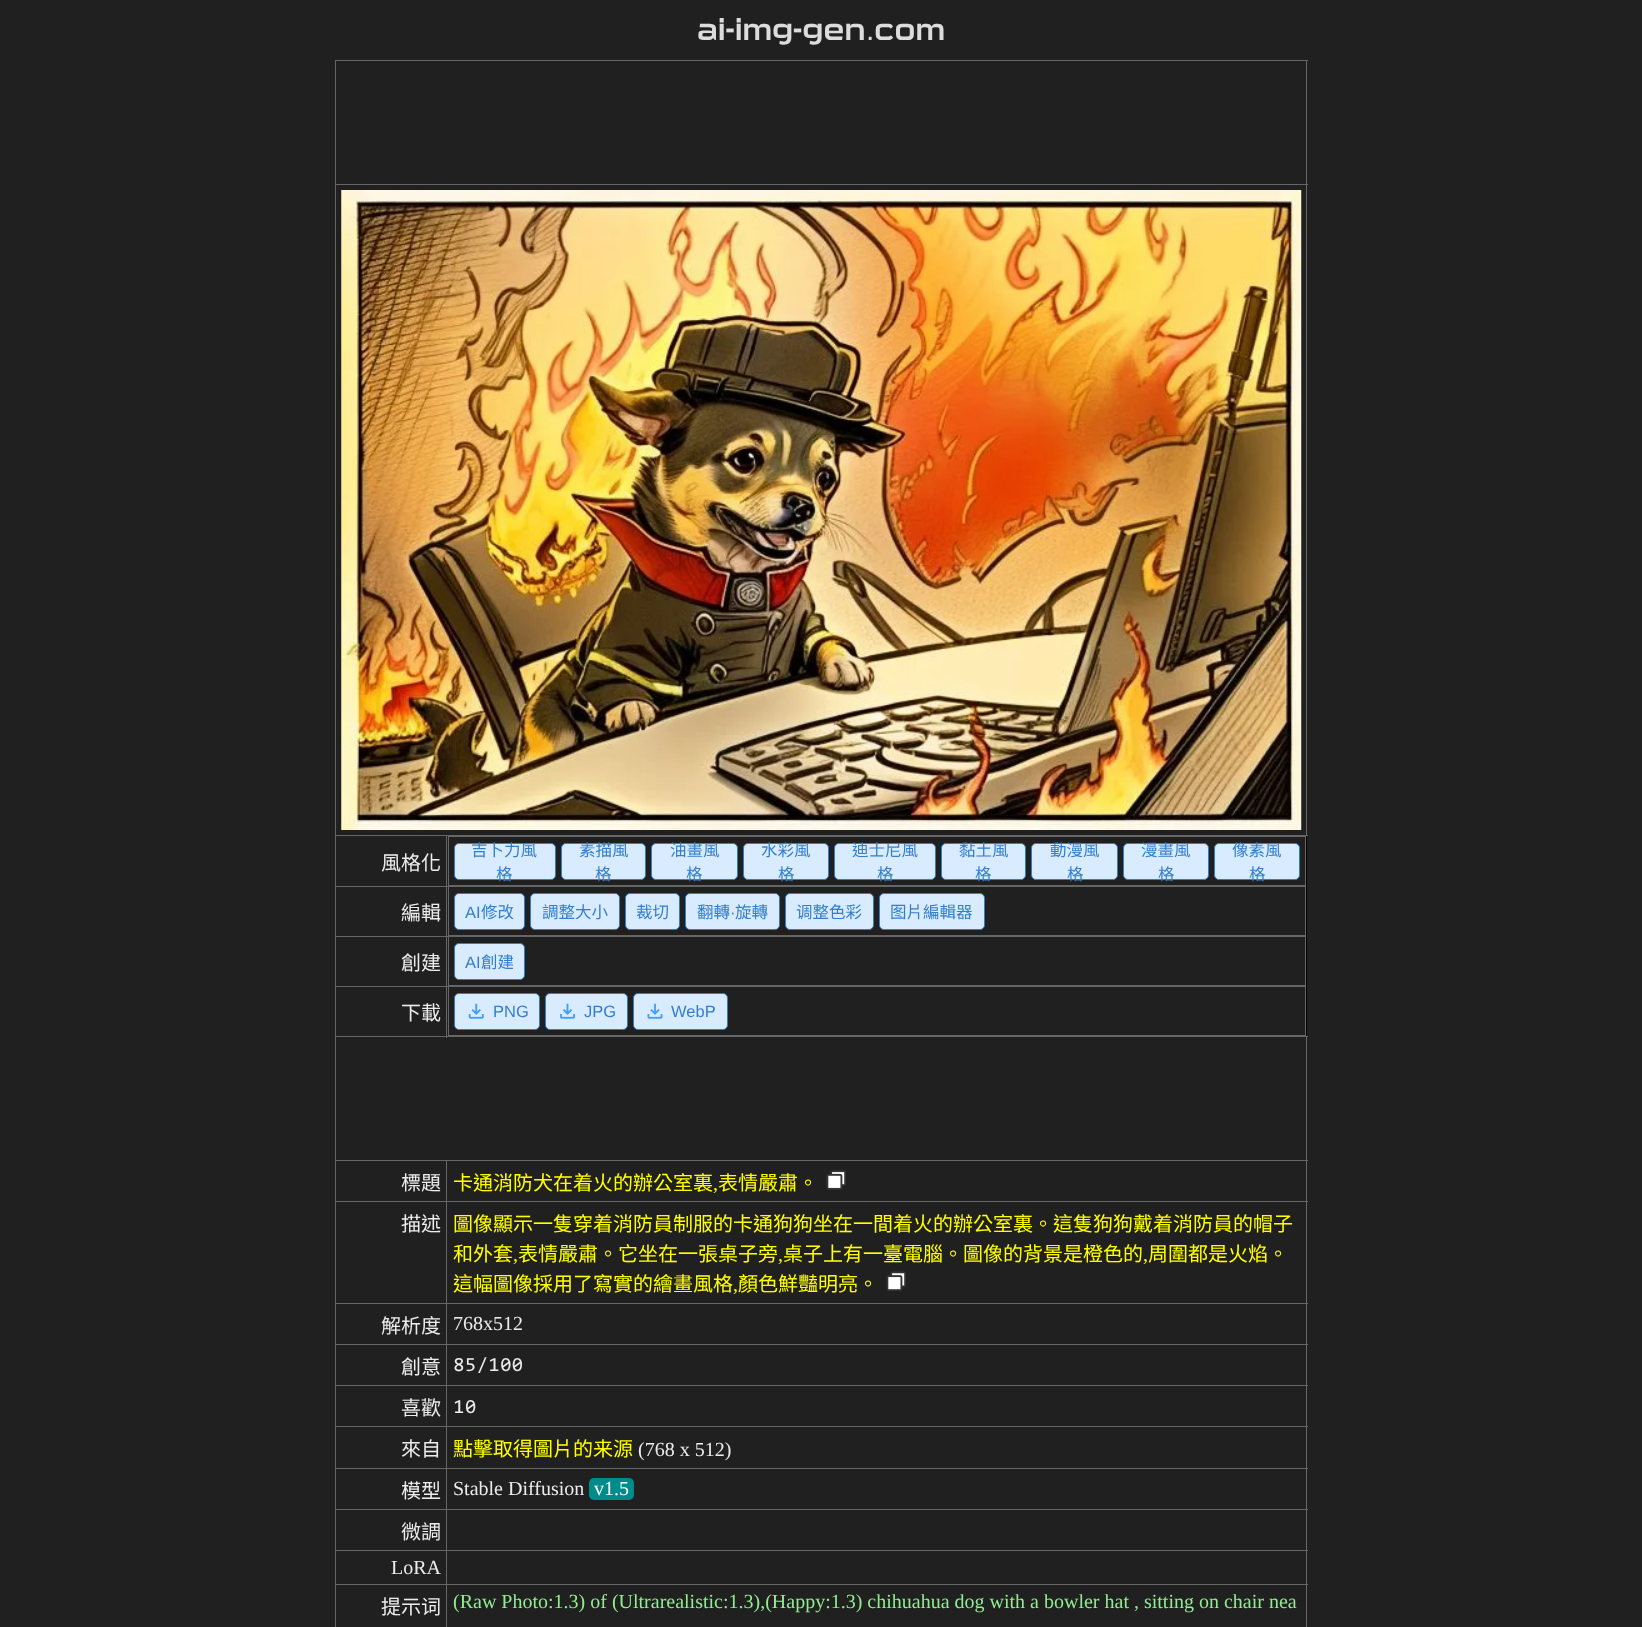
(async () => {
const canvas = document.querySelector("canvas")
canvas.width = 1642
canvas.height = 1627
const c = canvas.getContext("2d")
c.miterLimit = 4
c.fontKerning = "normal"
function T(s,x,y){c.fillText(s,x,y)}
function R(x,y,w,h){c.fillRect(x,y,w,h)}
function Q(x,y,w,h,r){c.beginPath();c.roundRect(x,y,w,h,r);c.fill()}
async function I(src,x,y,w,h){const img=new Image();img.src=src;await img.decode();c.drawImage(img,x,y,w,h)}
c.fillStyle="#202020"
R(0,0,1642,1627)
c.font="bold 30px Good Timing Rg"
c.fillStyle="#dcdcdc"
T("ai-img-gen",697,40)
c.font="30px Liberation Sans"
T(".",866,40)
c.font="bold 30px Good Timing Rg"
T("com",874,40)
c.fillStyle="#000"
R(1306,836,1,200)
c.fillStyle="#666"
R(335,60,973,1)
R(335,184,973,1)
R(1306,184,1,652)
R(1306,60,1,125)
R(335,886,113,1)
R(335,936,113,1)
R(335,986,113,1)
R(335,1036,973,1)
R(446,986,1,52)
R(446,936,1,52)
R(446,835,1,103)
R(446,1160,862,1)
R(446,1201,862,1)
R(446,1303,862,1)
R(446,1344,862,1)
R(446,1385,862,1)
R(446,1426,862,1)
R(446,1468,862,1)
R(446,1509,862,1)
R(446,1550,862,1)
R(446,1584,862,1)
R(446,1584,1,43)
R(335,1584,113,1)
R(446,1550,1,35)
R(335,1550,113,1)
R(446,1509,1,42)
R(335,1509,113,1)
R(446,1468,1,42)
R(335,1468,113,1)
R(446,1426,1,43)
R(335,1426,113,1)
R(446,1385,1,43)
R(335,1385,113,1)
R(446,1344,1,42)
R(335,1344,113,1)
R(446,1303,1,42)
R(335,1303,113,1)
R(446,1201,1,103)
R(335,1201,113,1)
R(446,1160,1,43)
R(335,1160,113,1)
R(335,1584,1,43)
R(335,1550,1,35)
R(335,1509,1,42)
R(335,1468,1,42)
R(335,1426,1,43)
R(335,1385,1,43)
R(335,1344,1,42)
R(335,1303,1,42)
R(335,1201,1,103)
R(335,1160,1,43)
R(335,1036,1,125)
R(335,986,1,52)
R(335,936,1,52)
R(335,835,1,103)
R(335,835,973,1)
R(335,184,1,652)
R(335,60,1,125)
await I("1.png",341,190,961,640)
c.font="20px Noto Sans CJK TC"
c.fillStyle="#ececec"
T("風格化",381,870)
c.strokeStyle="#666"
c.strokeRect(448.5,836.5,857,49)
c.fillStyle="#d9ecff"
c.beginPath()
c.roundRect(454.5,843.5,101,36,4.5)
c.fill()
c.strokeStyle="#337ecc"
c.stroke()
c.font="16.5px Noto Sans CJK TC"
c.fillStyle="#337ecc"
T("吉卜力風",471,856)
T("格",496,880)
c.fillStyle="#d9ecff"
c.beginPath()
c.roundRect(561.5,843.5,84,36,4.5)
c.fill()
c.stroke()
c.fillStyle="#337ecc"
T("素描風",579,856)
T("格",595,880)
c.fillStyle="#d9ecff"
c.beginPath()
c.roundRect(651.5,843.5,86,36,4.5)
c.fill()
c.stroke()
c.fillStyle="#337ecc"
T("油畫風",670,856)
T("格",686,880)
c.fillStyle="#d9ecff"
c.beginPath()
c.roundRect(743.5,843.5,85,36,4.5)
c.fill()
c.stroke()
c.fillStyle="#337ecc"
T("水彩風",761,856)
T("格",778,880)
c.fillStyle="#d9ecff"
c.beginPath()
c.roundRect(834.5,843.5,101,36,4.5)
c.fill()
c.stroke()
c.fillStyle="#337ecc"
T("迪士尼風",852,856)
T("格",877,880)
c.fillStyle="#d9ecff"
c.beginPath()
c.roundRect(941.5,843.5,84,36,4.5)
c.fill()
c.stroke()
c.fillStyle="#337ecc"
T("黏土風",959,856)
T("格",975,880)
c.fillStyle="#d9ecff"
c.beginPath()
c.roundRect(1031.5,843.5,86,36,4.5)
c.fill()
c.stroke()
c.fillStyle="#337ecc"
T("動漫風",1050,856)
T("格",1067,880)
c.fillStyle="#d9ecff"
c.beginPath()
c.roundRect(1123.5,843.5,85,36,4.5)
c.fill()
c.stroke()
c.fillStyle="#337ecc"
T("漫畫風",1141,856)
T("格",1158,880)
c.fillStyle="#d9ecff"
c.beginPath()
c.roundRect(1214.5,843.5,85,36,4.5)
c.fill()
c.stroke()
c.fillStyle="#337ecc"
T("像素風",1232,856)
T("格",1249,880)
c.font="20px Noto Sans CJK TC"
c.fillStyle="#ececec"
T("編輯",401,920)
c.strokeStyle="#666"
c.strokeRect(448.5,886.5,857,49)
c.fillStyle="#d9ecff"
c.beginPath()
c.roundRect(454.5,893.5,70,36,4.5)
c.fill()
c.strokeStyle="#337ecc"
c.stroke()
c.font="16.5px Liberation Sans"
c.fillStyle="#337ecc"
T("AI",465,918)
c.font="16.5px Noto Sans CJK TC"
T("修改",481,918)
c.fillStyle="#d9ecff"
c.beginPath()
c.roundRect(530.5,893.5,89,36,4.5)
c.fill()
c.stroke()
c.fillStyle="#337ecc"
T("調整大小",542,918)
c.fillStyle="#d9ecff"
c.beginPath()
c.roundRect(625.5,893.5,54,36,4.5)
c.fill()
c.stroke()
c.fillStyle="#337ecc"
T("裁切",636,918)
c.fillStyle="#d9ecff"
c.beginPath()
c.roundRect(685.5,893.5,94,36,4.5)
c.fill()
c.stroke()
c.fillStyle="#337ecc"
T("翻轉",697,918)
c.font="16.5px Liberation Sans"
T("·",730,918)
c.font="16.5px Noto Sans CJK TC"
T("旋轉",735,918)
c.fillStyle="#d9ecff"
c.beginPath()
c.roundRect(785.5,893.5,88,36,4.5)
c.fill()
c.stroke()
c.fillStyle="#337ecc"
T("调整色彩",796,918)
c.fillStyle="#d9ecff"
c.beginPath()
c.roundRect(879.5,893.5,105,36,4.5)
c.fill()
c.stroke()
c.fillStyle="#337ecc"
T("图片編輯器",890,918)
c.font="20px Noto Sans CJK TC"
c.fillStyle="#ececec"
T("創建",401,970)
c.strokeStyle="#666"
c.strokeRect(448.5,936.5,857,49)
c.fillStyle="#d9ecff"
c.beginPath()
c.roundRect(454.5,943.5,70,36,4.5)
c.fill()
c.strokeStyle="#337ecc"
c.stroke()
c.font="16.5px Liberation Sans"
c.fillStyle="#337ecc"
T("AI",465,968)
c.font="16.5px Noto Sans CJK TC"
T("創建",481,968)
c.font="20px Noto Sans CJK TC"
c.fillStyle="#ececec"
T("下載",401,1020)
c.strokeStyle="#666"
c.strokeRect(448.5,986.5,857,49)
c.fillStyle="#d9ecff"
c.beginPath()
c.roundRect(454.5,993.5,85,36,4.5)
c.fill()
c.strokeStyle="#337ecc"
c.stroke()
await I("2.png",468,1003,16,16)
c.font="16.5px Liberation Sans"
c.fillStyle="#337ecc"
T("PNG",493,1017)
c.fillStyle="#d9ecff"
c.beginPath()
c.roundRect(545.5,993.5,82,36,4.5)
c.fill()
c.stroke()
await I("3.png",560,1003,15,16)
c.fillStyle="#337ecc"
T("JPG",584,1017)
c.fillStyle="#d9ecff"
c.beginPath()
c.roundRect(633.5,993.5,94,36,4.5)
c.fill()
c.stroke()
await I("4.png",647,1003,16,16)
c.fillStyle="#337ecc"
T("WebP",671,1017)
c.fillStyle="#666"
R(1306,1584,1,43)
R(1306,1550,1,35)
R(1306,1509,1,42)
R(1306,1468,1,42)
R(1306,1426,1,43)
R(1306,1385,1,43)
R(1306,1344,1,42)
R(1306,1303,1,42)
R(1306,1201,1,103)
R(1306,1160,1,43)
R(1306,1036,1,125)
c.font="20px Noto Sans CJK TC"
c.fillStyle="#ececec"
T("標題",401,1190)
c.fillStyle="#ff0"
T("卡通消防犬在着火的辦公室裏",453,1190)
c.font="20px Liberation Serif"
T(",",713,1190)
c.font="20px Noto Sans CJK TC"
T("表情嚴肅。",718,1190)
await I("5.png",826,1170,20,20)
c.fillStyle="#ececec"
T("描述",401,1231)
c.fillStyle="#ff0"
T("圖像顯示一隻穿着消防員制服的卡通狗狗坐在一間着火的辦公室裏。這隻狗狗戴着消防員的帽子",453,1231)
T("和外套",453,1261)
c.font="20px Liberation Serif"
T(",",513,1261)
c.font="20px Noto Sans CJK TC"
T("表情嚴肅。它坐在一張桌子旁",518,1261)
c.font="20px Liberation Serif"
T(",",778,1261)
c.font="20px Noto Sans CJK TC"
T("桌子上有一臺電腦。圖像的背景是橙色的",783,1261)
c.font="20px Liberation Serif"
T(",",1143,1261)
c.font="20px Noto Sans CJK TC"
T("周圍都是火焰。",1148,1261)
T("這幅圖像採用了寫實的繪畫風格",453,1291)
c.font="20px Liberation Serif"
T(",",733,1291)
c.font="20px Noto Sans CJK TC"
T("顏色鮮豔明亮。",738,1291)
await I("6.png",886,1271,20,20)
c.fillStyle="#ececec"
T("解析度",381,1333)
c.font="20px Liberation Serif"
T("768x512",453,1330)
c.font="20px Noto Sans CJK TC"
T("創意",401,1374)
c.font="20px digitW"
T("85/100",453,1371)
c.font="20px Noto Sans CJK TC"
T("喜歡",401,1415)
c.font="20px digitW"
T("10",453,1413)
c.font="20px Noto Sans CJK TC"
T("來自",401,1456)
c.fillStyle="#ff0"
T("點擊取得圖片的来源",453,1456)
c.font="20px Liberation Serif"
c.fillStyle="#ececec"
T("(768 x 512)",638,1456)
c.font="20px Noto Sans CJK TC"
T("模型",401,1498)
c.font="20px Liberation Serif"
T("Stable Diffusion",453,1495)
c.fillStyle="#008b8b"
Q(589,1478,45,22,5)
c.fillStyle="#fff"
T("v1.5",594,1495)
c.font="20px Noto Sans CJK TC"
c.fillStyle="#ececec"
T("微調",401,1539)
c.font="20px Liberation Serif"
T("LoRA",391,1574)
c.font="20px Noto Sans CJK TC"
T("提示词",381,1614)
c.font="20px Liberation Serif"
c.fillStyle="#90ee90"
T("(Raw Photo:1.3) of (Ultrarealistic:1.3),(Happy:1.3) chihuahua dog with a bowler hat , sitting on chair nea",453,1608)
})()
